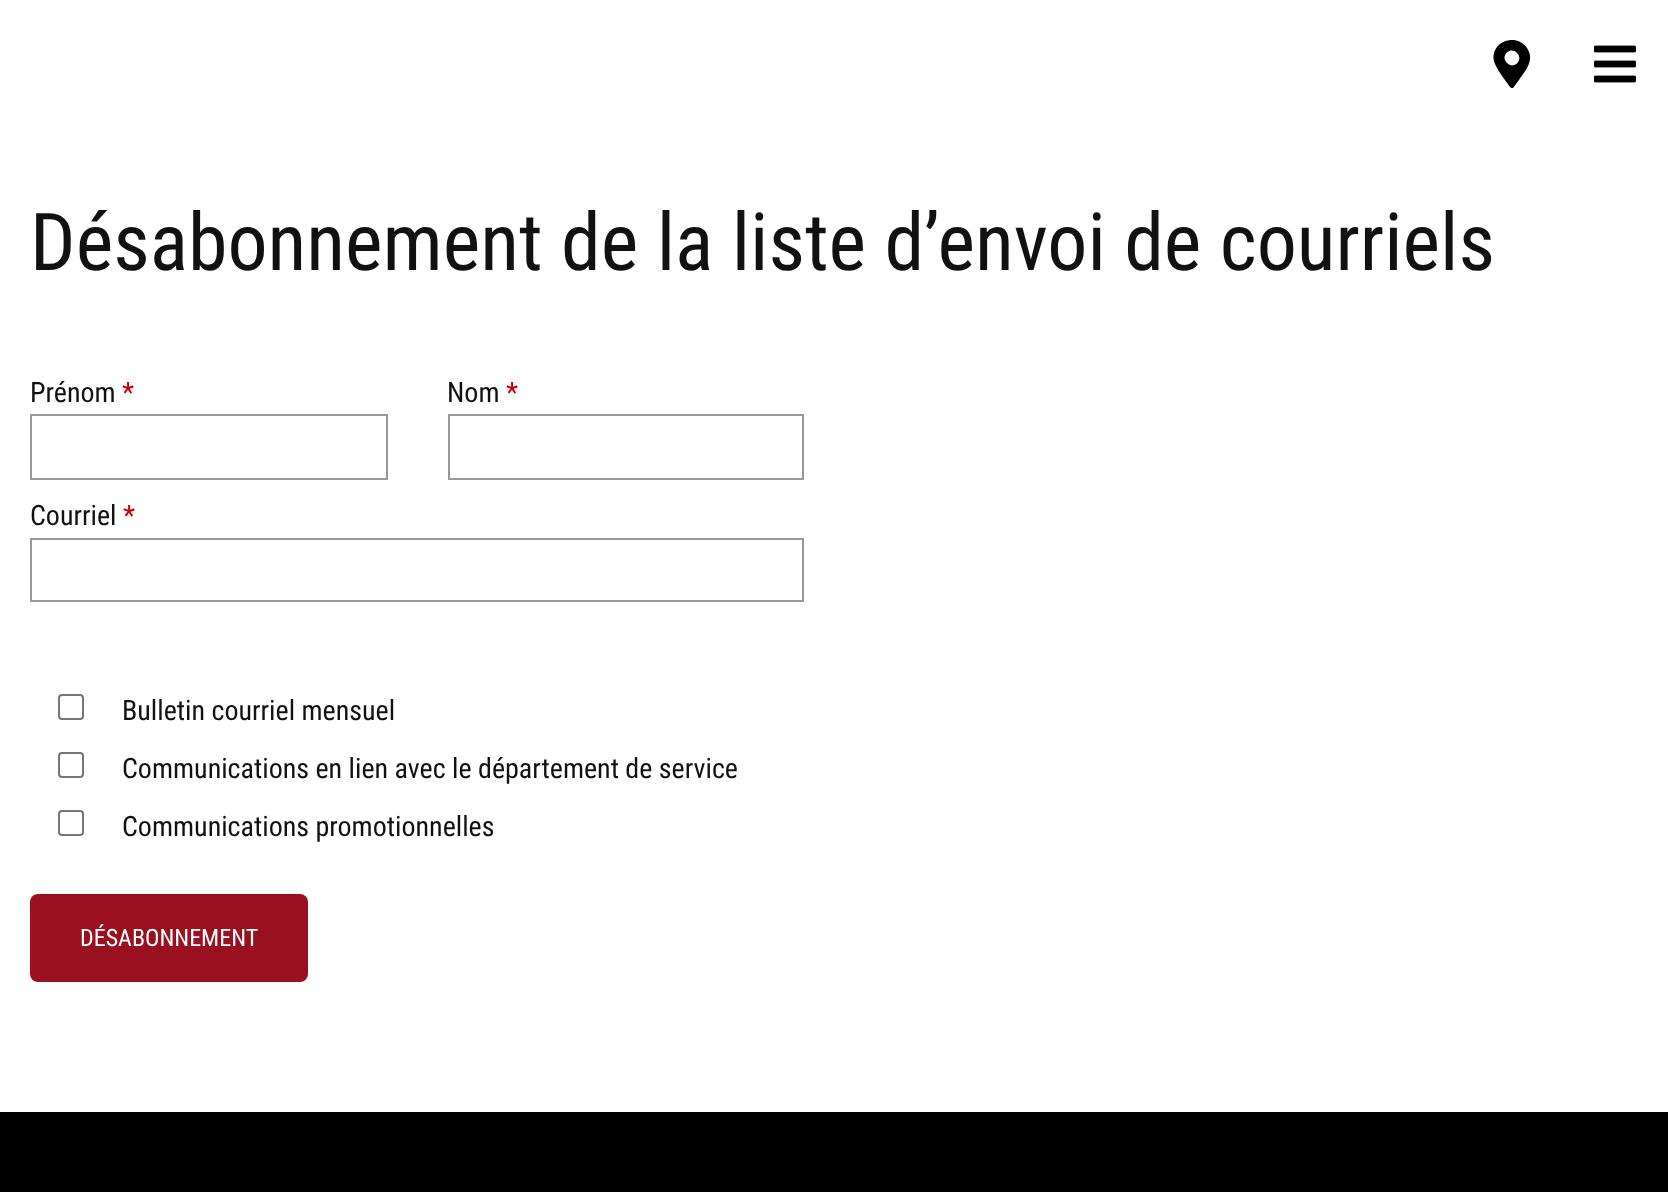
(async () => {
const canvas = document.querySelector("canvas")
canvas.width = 1668
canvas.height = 1192
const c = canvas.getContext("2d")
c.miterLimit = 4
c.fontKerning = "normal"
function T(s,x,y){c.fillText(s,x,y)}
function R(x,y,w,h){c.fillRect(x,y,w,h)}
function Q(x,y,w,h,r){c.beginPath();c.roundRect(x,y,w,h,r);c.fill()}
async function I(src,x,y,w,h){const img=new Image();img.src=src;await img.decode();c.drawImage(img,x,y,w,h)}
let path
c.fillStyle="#fff"
R(0,0,1668,1192)
c.fillStyle="#000"
path = new Path2D("M1510 87c-4-6-14-18-16-26c-4-19 22-29 33-13c8 12-1 22-8 32l-6 8c-1 0-2 0-3-1zm-3-24c7 7 17-3 10-10c-7-7-17 3-10 10z")
c.fill(path)
await I("1.png",1594,45,42,38)
c.font="80px Roboto Condensed"
c.fillStyle="#111"
T("Désabonnement de la liste d’envoi de courriels",30,270)
c.font="28px Roboto Condensed"
T("Prénom",30,402)
c.fillStyle="#cc0001"
T("*",122,402)
c.strokeStyle="#999"
c.lineWidth=2
c.strokeRect(31,415,356,64)
c.fillStyle="#111"
T("Nom",447,402)
c.fillStyle="#cc0001"
T("*",506,402)
c.strokeRect(449,415,354,64)
c.fillStyle="#111"
T("Courriel",30,525)
c.fillStyle="#cc0001"
T("*",123,525)
c.strokeRect(31,539,772,62)
c.beginPath()
c.roundRect(59,695,24,24,3)
c.strokeStyle="#767676"
c.stroke()
c.fillStyle="#111"
T("Bulletin courriel mensuel",122,720)
c.beginPath()
c.roundRect(59,753,24,24,3)
c.stroke()
T("Communications en lien avec le département de service",122,778)
c.beginPath()
c.roundRect(59,811,24,24,3)
c.stroke()
T("Communications promotionnelles",122,836)
c.fillStyle="#991020"
Q(30,894,278,88,8)
c.font="24px Roboto Condensed"
c.fillStyle="#fff"
T("DÉSABONNEMENT",80,946)
c.fillStyle="#000"
R(0,1112,1668,80)
})()
